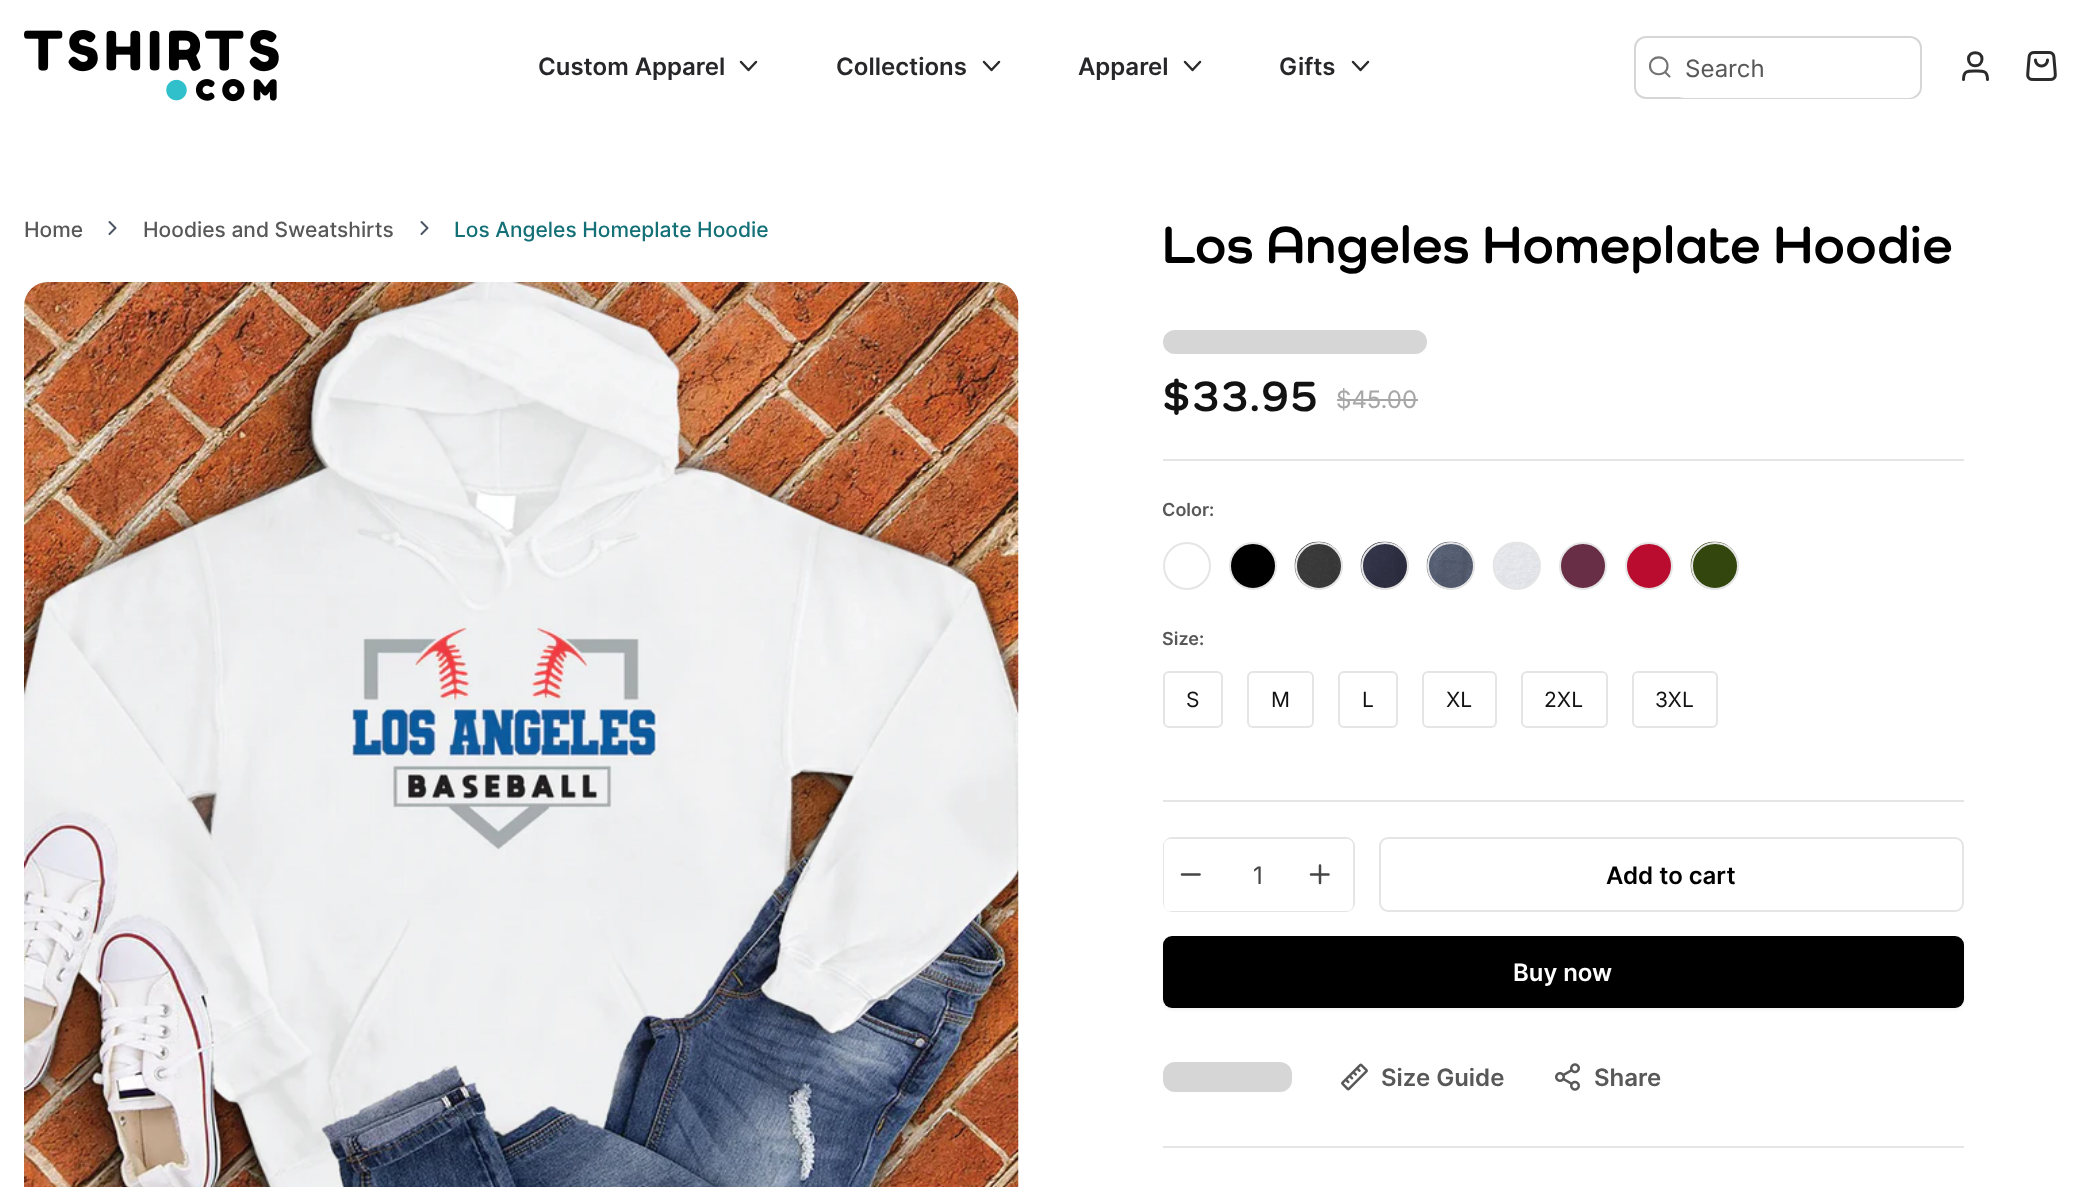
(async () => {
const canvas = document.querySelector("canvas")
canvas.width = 2083
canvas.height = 1187
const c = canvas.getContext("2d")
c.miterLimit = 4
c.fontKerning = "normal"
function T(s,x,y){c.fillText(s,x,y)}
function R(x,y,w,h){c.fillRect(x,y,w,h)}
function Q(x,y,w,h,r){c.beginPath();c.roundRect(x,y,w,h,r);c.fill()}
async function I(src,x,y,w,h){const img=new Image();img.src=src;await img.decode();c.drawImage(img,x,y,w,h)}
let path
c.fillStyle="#fff"
R(0,0,2083,1187)
await I("1.png",24,30,255,72)
c.font="600 24px Inter"
c.fillStyle="#27272a"
T("Custom Apparel",538,75)
path = new Path2D("M741 62l7.5 8l7.5-8")
c.strokeStyle="#2b2b2b"
c.lineWidth=2.5
c.lineCap="round"
c.lineJoin="round"
c.stroke(path)
T("Collections",836,75)
path = new Path2D("M984 62l7.5 8l7.5-8")
c.stroke(path)
T("Apparel",1078,75)
path = new Path2D("M1185 62l7.5 8l7.5-8")
c.stroke(path)
T("Gifts",1279,75)
path = new Path2D("M1353 62l7.5 8l7.5-8")
c.stroke(path)
c.beginPath()
c.roundRect(1635,37,286,61,11)
c.strokeStyle="#d6d6d6"
c.lineWidth=2
c.lineJoin="miter"
c.stroke()
path = new Path2D("M1669.5 76.5l-4.5-4.5m2.5-6c0 11-17.5 11-17.5 0c0-11.5 17.5-11.5 17.5 0z")
c.strokeStyle="#737373"
c.lineWidth=2.1
c.lineJoin="round"
c.stroke(path)
c.fillStyle="#fff"
Q(1673,38,247,60,12)
c.font="24px Inter"
c.fillStyle="#585858"
T("Search",1685,77)
path = new Path2D("M1987.5 79.5c0-9-4.5-8.5-12-8.5c-7.5 0-12-.5-12 8.5m18.5-20.5c0 9-13.5 9-13.5 0c0-8.5 13.5-8.5 13.5 0z")
c.strokeStyle="#2b2b2b"
c.lineWidth=3
c.stroke(path)
await I("2.png",2026,51,31,30)
c.font="500 21px Inter"
T("Home",24,237)
path = new Path2D("M109.5 234l6-6l-6-6")
c.strokeStyle="#4b5563"
c.lineWidth=2
c.stroke(path)
T("Hoodies and Sweatshirts",143,237)
path = new Path2D("M421.5 234l6-6l-6-6")
c.stroke(path)
c.fillStyle="#137077"
T("Los Angeles Homeplate Hoodie",454,237)
await I("3.png",24,282,995,905)
c.font="bold 54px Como"
c.fillStyle="#000"
T("Los Angeles Homeplate Hoodie",1162,263)
c.fillStyle="#d6d6d6"
Q(1163,330,264,24,12)
c.font="bold 45px Como"
c.fillStyle="#121212"
T("$33.95",1162,411)
c.font="24px Inter"
c.fillStyle="#a7a7a7"
T("$45.00",1336,408)
R(1337,399,81,2)
c.fillStyle="#e5e5e5"
R(1163,459,801,2)
c.font="600 18px Inter"
c.fillStyle="#585858"
T("Color:",1162,516)
c.beginPath()
c.arc(1187,566,23,0,7)
c.strokeStyle="#e5e5e5"
c.stroke()
c.fillStyle="#000"
c.beginPath()
c.arc(1253,566,23,0,7)
c.fill()
c.stroke()
await I("4.png",1294,541,49,49)
c.beginPath()
c.arc(1319,566,23,0,7)
c.stroke()
await I("5.png",1360,541,49,49)
c.beginPath()
c.arc(1385,566,23,0,7)
c.stroke()
await I("6.png",1426,541,49,49)
c.beginPath()
c.arc(1451,566,23,0,7)
c.stroke()
await I("7.png",1492,541,49,49)
c.beginPath()
c.arc(1517,566,23,0,7)
c.stroke()
c.fillStyle="#672e45"
c.beginPath()
c.arc(1583,566,23,0,7)
c.fill()
c.stroke()
c.fillStyle="#ba0c2f"
c.beginPath()
c.arc(1649,566,23,0,7)
c.fill()
c.stroke()
await I("8.png",1690,541,49,49)
c.beginPath()
c.arc(1715,566,23,0,7)
c.stroke()
c.fillStyle="#585858"
T("Size:",1162,645)
c.beginPath()
c.roundRect(1164,672,58,55,5)
c.lineJoin="miter"
c.stroke()
c.font="21px Inter"
c.fillStyle="#121212"
T("S",1186,707)
c.beginPath()
c.roundRect(1248,672,65,55,5)
c.stroke()
T("M",1271,707)
c.beginPath()
c.roundRect(1339,672,58,55,5)
c.stroke()
T("L",1362,707)
c.beginPath()
c.roundRect(1423,672,73,55,5)
c.stroke()
T("XL",1446,707)
c.beginPath()
c.roundRect(1522,672,85,55,5)
c.stroke()
T("2XL",1544,707)
c.beginPath()
c.roundRect(1633,672,84,55,5)
c.stroke()
T("3XL",1655,707)
c.fillStyle="#e5e5e5"
R(1163,800,801,2)
R(1163,1146,801,2)
c.beginPath()
c.roundRect(1164,838,190,73,8)
c.stroke()
c.fillStyle="#fff"
c.beginPath()
c.roundRect(1164,839,59,72,[6,0,0,6])
c.fill()
path = new Path2D("M1182 874.5h17.5")
c.strokeStyle="#454545"
c.lineWidth=2.5
c.lineJoin="round"
c.stroke(path)
R(1223,910,70,1)
c.font="24px Inter"
c.fillStyle="#454545"
T("1",1253,884)
c.fillStyle="#fff"
c.beginPath()
c.roundRect(1293,839,60,72,[0,6,6,0])
c.fill()
path = new Path2D("M1320 865.5v17.5m-9-8.5h17.5")
c.stroke(path)
c.beginPath()
c.roundRect(1380,838,583,73,8)
c.strokeStyle="#e5e5e5"
c.lineWidth=2
c.lineJoin="miter"
c.stroke()
c.font="600 24px Inter"
c.fillStyle="#000"
T("Add to cart",1606,884)
c.fillStyle="#0000000d"
c.filter="blur(1.5px)"
c.beginPath()
c.roundRect(1163,938,801,72,9)
c.fill()
c.filter="none"
c.fillStyle="#000"
Q(1163,936,801,72,9)
c.fillStyle="#fff"
T("Buy now",1513,981)
c.fillStyle="#d6d6d6"
Q(1163,1062,129,30,12)
await I("9.png",1341,1063,27,28)
c.fillStyle="#585858"
T("Size Guide",1381,1086)
await I("10.png",1555,1063,25,28)
T("Share",1594,1086)
})()
